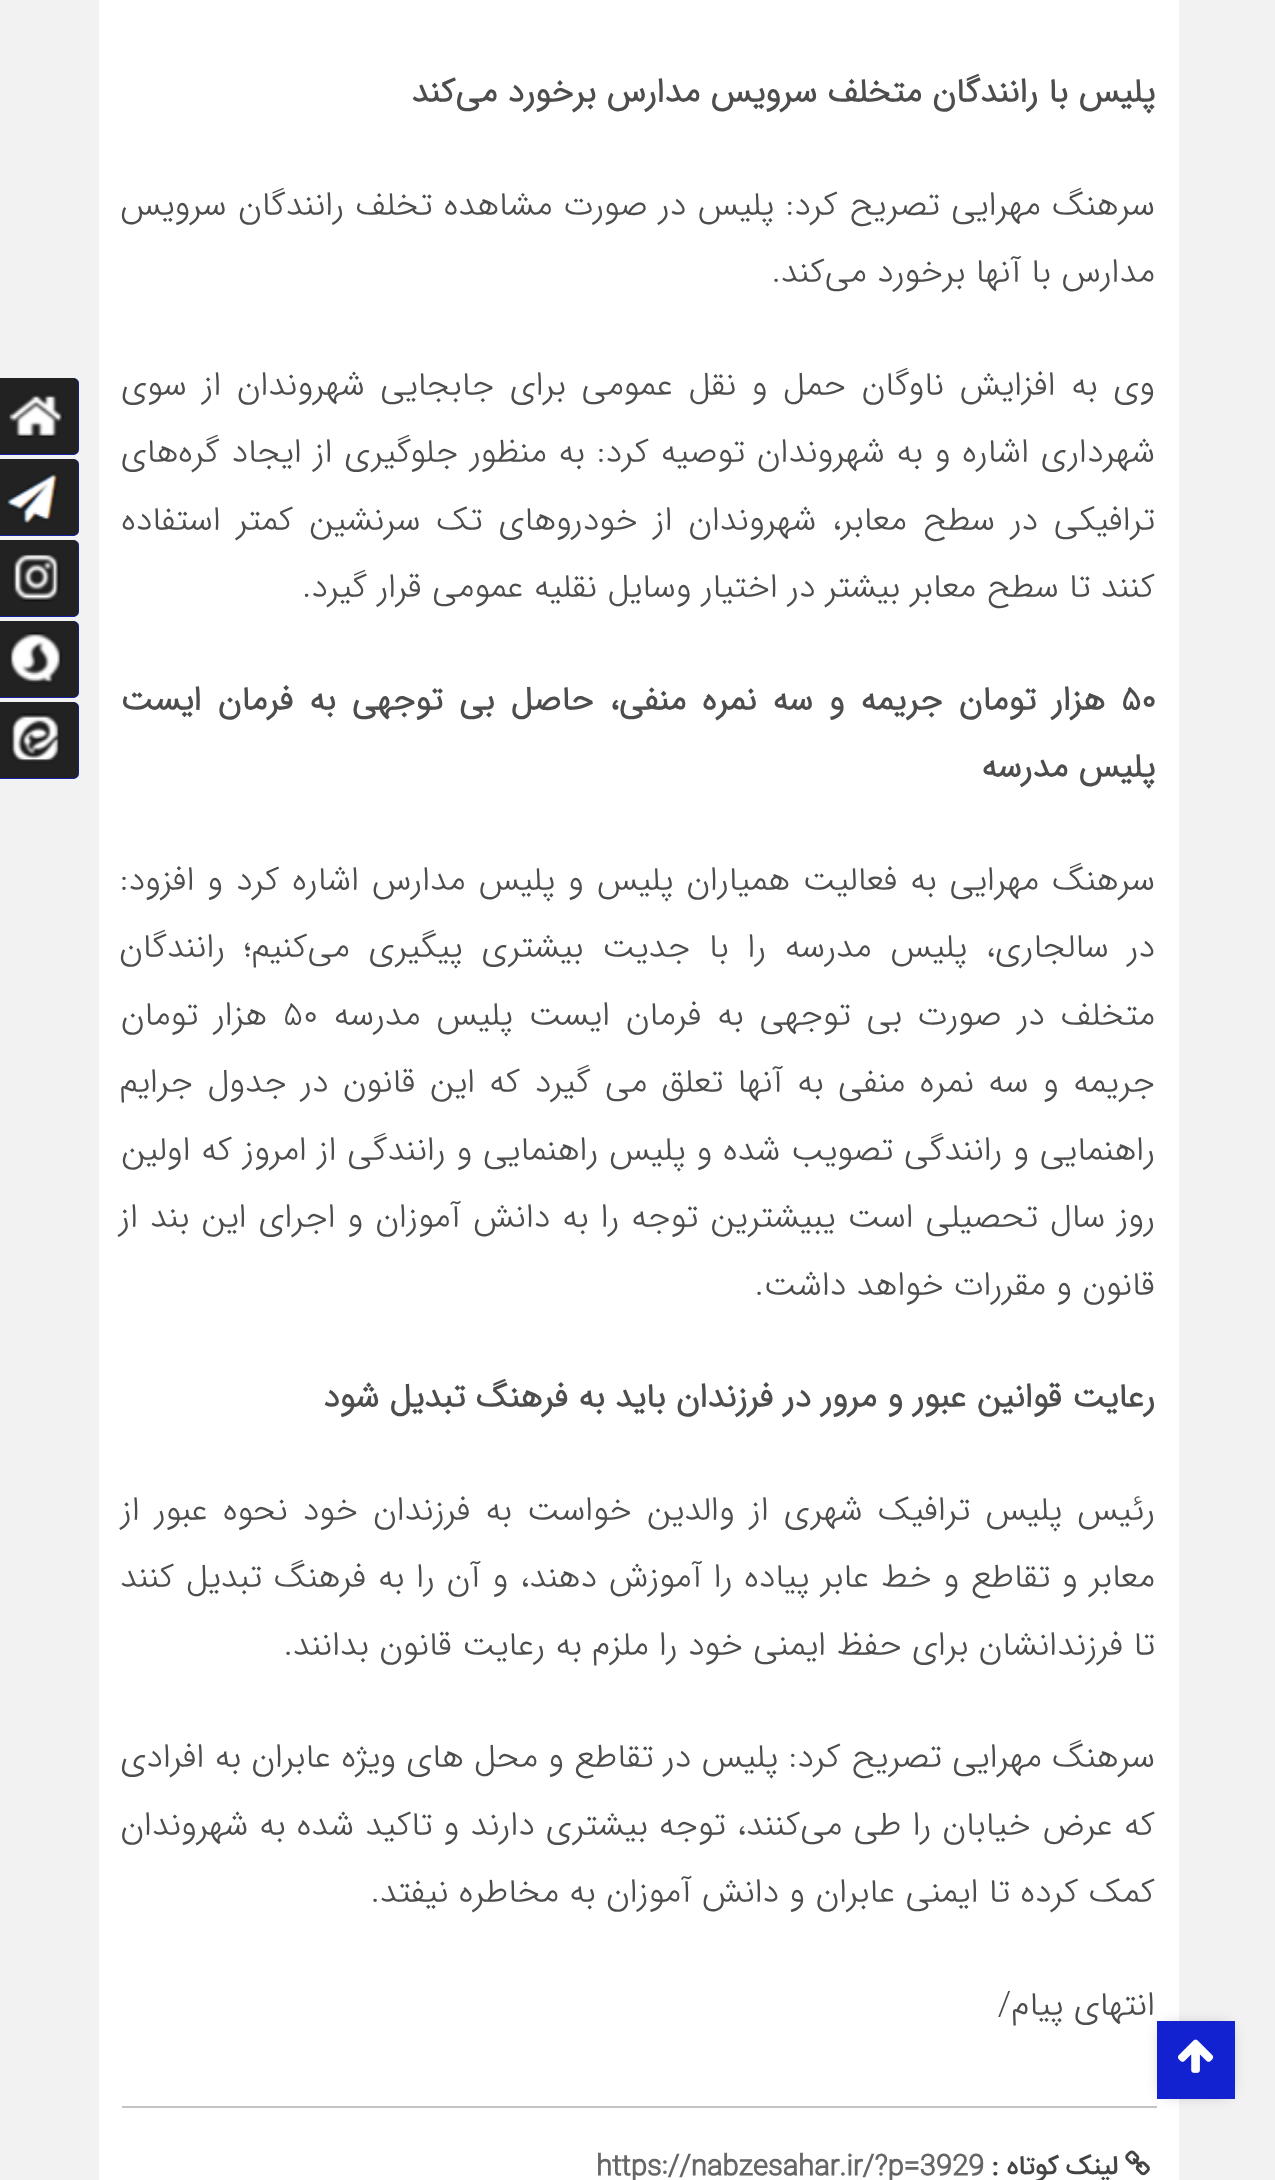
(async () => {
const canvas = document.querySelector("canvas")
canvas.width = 1275
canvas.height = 2180
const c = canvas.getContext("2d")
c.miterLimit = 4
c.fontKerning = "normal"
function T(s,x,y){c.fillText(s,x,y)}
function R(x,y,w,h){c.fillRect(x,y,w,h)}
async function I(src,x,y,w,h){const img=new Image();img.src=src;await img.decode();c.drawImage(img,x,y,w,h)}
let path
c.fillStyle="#f2f2f2"
R(0,0,1275,2180)
c.fillStyle="#fff"
R(99,0,1080,2180)
c.fillStyle="#c4c4c4"
R(122,2106,1035,2)
c.fillStyle="#0000004d"
c.filter="blur(8px)"
c.beginPath()
c.rect(1163,2027,66,66)
c.fill()
c.filter="none"
c.fillStyle="#1222d1"
R(1157,2021,78,78)
await I("1.png",1178,2039,36,34)
c.direction="rtl"
c.font="bold 33.75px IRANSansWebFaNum"
c.fillStyle="#4d4d4d"
T("پلیس با رانندگان متخلف سرویس مدارس برخورد می‌کند",1155,102)
c.wordSpacing="1px"
c.font="300 33.75px IRANSansWebFaNum"
T("سرهنگ مهرایی تصریح کرد: پلیس در صورت مشاهده تخلف رانندگان سرویس",1155,215)
c.wordSpacing="0px"
T("مدارس با آنها برخورد می‌کند.",1155,282)
c.wordSpacing="5.25px"
T("وی به افزایش ناوگان حمل و نقل عمومی برای جابجایی شهروندان از سوی",1155,395)
c.wordSpacing="1.5px"
T("شهرداری اشاره و به شهروندان توصیه کرد: به منظور جلوگیری از ایجاد گره‌های",1155,462)
c.wordSpacing="5.5px"
T("ترافیکی در سطح معابر، شهروندان از خودروهای تک سرنشین کمتر استفاده",1155,530)
c.wordSpacing="0px"
T("کنند تا سطح معابر بیشتر در اختیار وسایل نقلیه عمومی قرار گیرد.",1155,597)
c.direction="ltr"
c.font="bold 33.75px IRANSansWebFaNum"
T("۵۰",1121,710)
c.wordSpacing="5.75px"
c.direction="rtl"
T("هزار تومان جریمه و سه نمره منفی، حاصل بی توجهی به فرمان ایست",1105,710)
c.wordSpacing="0px"
T("پلیس مدرسه",1155,777)
c.wordSpacing="2.6px"
c.font="300 33.75px IRANSansWebFaNum"
T("سرهنگ مهرایی به فعالیت همیاران پلیس و پلیس مدارس اشاره کرد و افزود:",1155,890)
c.wordSpacing="8.5px"
T("در سالجاری، پلیس مدرسه را با جدیت بیشتری پیگیری می‌کنیم؛ رانندگان",1155,957)
c.wordSpacing="5.5px"
T("متخلف در صورت بی توجهی به فرمان ایست پلیس مدرسه",1155,1025)
c.wordSpacing="0px"
c.direction="ltr"
T("۵۰",283,1025)
c.wordSpacing="5.5px"
c.direction="rtl"
T("هزار تومان",267,1025)
c.wordSpacing="4.1px"
T("جریمه و سه نمره منفی به آنها تعلق می گیرد که این قانون در جدول جرایم",1155,1092)
c.wordSpacing="0.5px"
T("راهنمایی و رانندگی تصویب شده و پلیس راهنمایی و رانندگی از امروز که اولین",1155,1160)
c.wordSpacing="1.75px"
T("روز سال تحصیلی است یبیشترین توجه را به دانش آموزان و اجرای این بند از",1155,1227)
c.wordSpacing="0px"
T("قانون و مقررات خواهد داشت.",1155,1295)
c.font="bold 33.75px IRANSansWebFaNum"
T("رعایت قوانین عبور و مرور در فرزندان باید به فرهنگ تبدیل شود",1155,1407)
c.wordSpacing="4.75px"
c.font="300 33.75px IRANSansWebFaNum"
T("رئیس پلیس ترافیک شهری از والدین خواست به فرزندان خود نحوه عبور از",1155,1520)
c.wordSpacing="1.5px"
T("معابر و تقاطع و خط عابر پیاده را آموزش دهند، و آن را به فرهنگ تبدیل کنند",1155,1587)
c.wordSpacing="0px"
T("تا فرزندانشان برای حفظ ایمنی خود را ملزم به رعایت قانون بدانند.",1155,1655)
T("سرهنگ مهرایی تصریح کرد: پلیس در تقاطع و محل های ویژه عابران به افرادی",1155,1767)
c.wordSpacing="0.75px"
T("که عرض خیابان را طی می‌کنند، توجه بیشتری دارند و تاکید شده به شهروندان",1155,1835)
c.wordSpacing="0px"
T("کمک کرده تا ایمنی عابران و دانش آموزان به مخاطره نیفتد.",1155,1902)
T("انتهای پیام/",1155,2015)
await I("2.png",1125,2150,25,26)
c.font="500 27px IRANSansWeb"
c.fillStyle="#444"
T("لینک کوتاه :",1118,2174)
c.direction="ltr"
c.font="bold 27px IRANSansWeb"
c.fillStyle="#666"
T("https://nabzesahar.ir/?p=3929",596,2174)
c.fillStyle="#1222d1"
path = new Path2D("M-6 378h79c3.5 0 6 2.5 6 6v65c0 3.5-2.5 6-6 6h-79z")
c.fill(path)
await I("3.png",0,378,79,77)
path = new Path2D("M-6 459h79c3.5 0 6 2.5 6 6v65c0 3.5-2.5 6-6 6h-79z")
c.fill(path)
await I("4.png",0,459,79,77)
path = new Path2D("M-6 540h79c3.5 0 6 2.5 6 6v65c0 3.5-2.5 6-6 6h-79z")
c.fill(path)
await I("5.png",0,540,79,77)
path = new Path2D("M-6 621h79c3.5 0 6 2.5 6 6v65c0 3.5-2.5 6-6 6h-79z")
c.fill(path)
await I("6.png",0,621,79,77)
path = new Path2D("M-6 702h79c3.5 0 6 2.5 6 6v65c0 3.5-2.5 6-6 6h-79z")
c.fill(path)
await I("7.png",0,702,79,77)
})()
